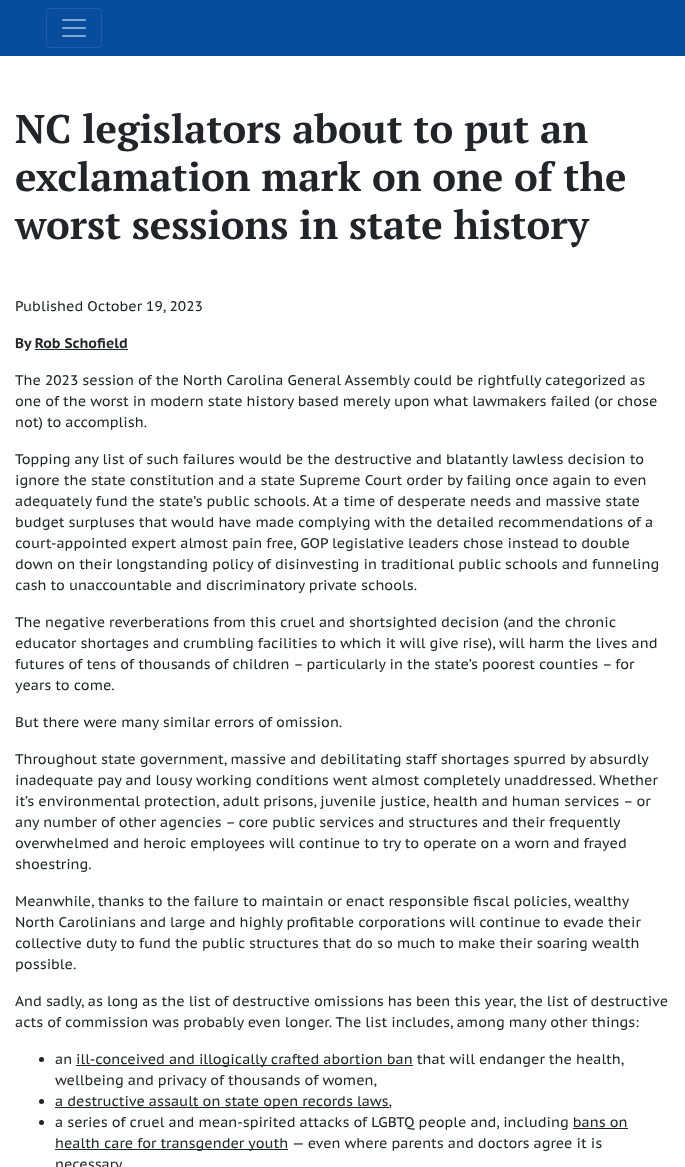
(async () => {
const canvas = document.querySelector("canvas")
canvas.width = 685
canvas.height = 1167
const c = canvas.getContext("2d")
c.miterLimit = 4
c.fontKerning = "normal"
function T(s,x,y){c.fillText(s,x,y)}
function R(x,y,w,h){c.fillRect(x,y,w,h)}
async function I(src,x,y,w,h){const img=new Image();img.src=src;await img.decode();c.drawImage(img,x,y,w,h)}
c.fillStyle="#fff"
R(0,0,685,1167)
c.fillStyle="#084c9e"
R(0,0,685,56)
c.beginPath()
c.roundRect(46.5,8.5,55,39,3.5)
c.strokeStyle="#215ea8"
c.stroke()
await I("1.png",62,19,24,18)
c.font="bold 40px PT Serif"
c.fillStyle="#212529"
T("NC legislators about to put an",15,143)
T("exclamation mark on one of the",15,191)
T("worst sessions in state history",15,239)
c.font="14px PT Sans Caption"
T("Published October 19, 2023",15,311)
c.font="bold 14px PT Sans Caption"
T("By Rob Schofield",15,348)
R(35,349,93,1)
c.font="14px PT Sans Caption"
T("The 2023 session of the North Carolina General Assembly could be rightfully categorized as",15,385)
T("one of the worst in modern state history based merely upon what lawmakers failed (or chose",15,406)
T("not) to accomplish.",15,427)
T("Topping any list of such failures would be the destructive and blatantly lawless decision to",15,464)
T("ignore the state constitution and a state Supreme Court order by failing once again to even",15,485)
T("adequately fund the state’s public schools. At a time of desperate needs and massive state",15,506)
T("budget surpluses that would have made complying with the detailed recommendations of a",15,527)
T("court-appointed expert almost pain free, GOP legislative leaders chose instead to double",15,548)
T("down on their longstanding policy of disinvesting in traditional public schools and funneling",15,569)
T("cash to unaccountable and discriminatory private schools.",15,590)
T("The negative reverberations from this cruel and shortsighted decision (and the chronic",15,627)
T("educator shortages and crumbling facilities to which it will give rise), will harm the lives and",15,648)
T("futures of tens of thousands of children – particularly in the state’s poorest counties – for",15,669)
T("years to come.",15,690)
T("But there were many similar errors of omission.",15,727)
T("Throughout state government, massive and debilitating staff shortages spurred by absurdly",15,764)
T("inadequate pay and lousy working conditions went almost completely unaddressed. Whether",15,785)
T("it’s environmental protection, adult prisons, juvenile justice, health and human services – or",15,806)
T("any number of other agencies – core public services and structures and their frequently",15,827)
T("overwhelmed and heroic employees will continue to try to operate on a worn and frayed",15,848)
T("shoestring.",15,869)
T("Meanwhile, thanks to the failure to maintain or enact responsible fiscal policies, wealthy",15,906)
T("North Carolinians and large and highly profitable corporations will continue to evade their",15,927)
T("collective duty to fund the public structures that do so much to make their soaring wealth",15,948)
T("possible.",15,969)
T("And sadly, as long as the list of destructive omissions has been this year, the list of destructive",15,1006)
T("acts of commission was probably even longer. The list includes, among many other things:",15,1027)
c.beginPath()
c.arc(41.5,1059.5,2.5,0,7)
c.fill()
T("an",55,1064)
R(76,1065,337,1)
T("ill-conceived and illogically crafted abortion ban that will endanger the health,",76,1064)
T("wellbeing and privacy of thousands of women,",55,1085)
c.beginPath()
c.arc(41.5,1101.5,2.5,0,7)
c.fill()
R(55,1107,334,1)
T("a destructive assault on state open records laws,",55,1106)
c.beginPath()
c.arc(41.5,1122.5,2.5,0,7)
c.fill()
T("a series of cruel and mean-spirited attacks of LGBTQ people and, including bans on",55,1127)
R(55,1149,233,1)
T("health care for transgender youth — even where parents and doctors agree it is",55,1148)
R(573,1128,55,1)
T("necessary",55,1169)
})()
